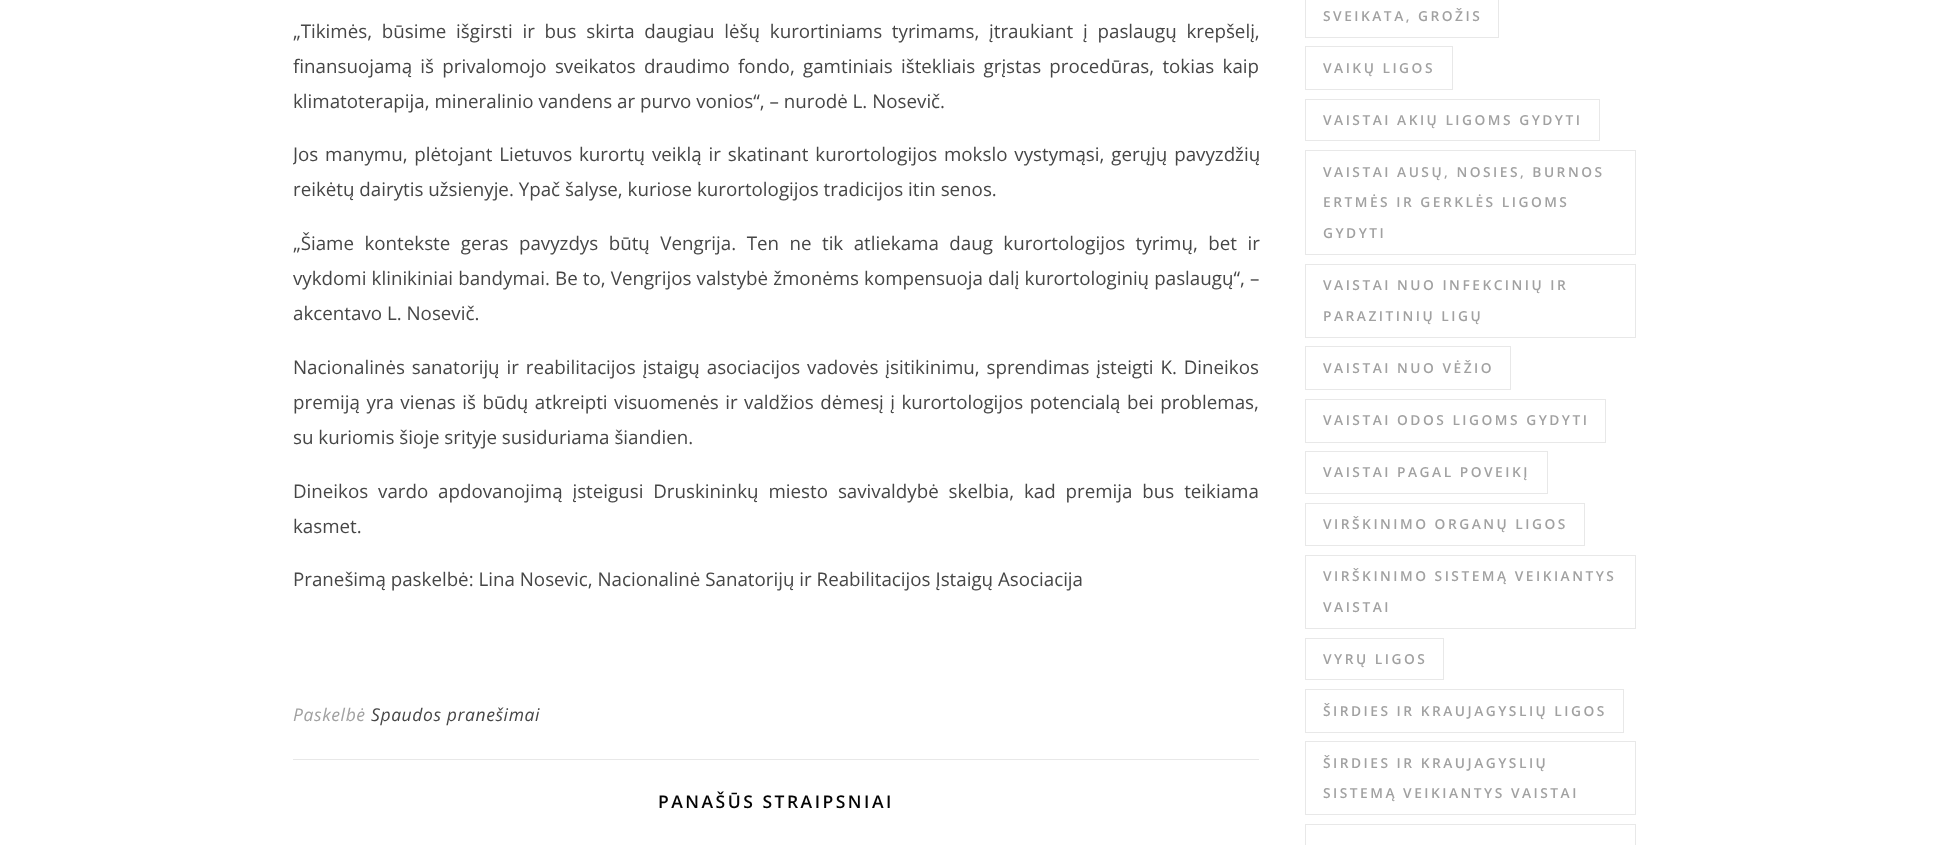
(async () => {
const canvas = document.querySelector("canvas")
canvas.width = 1935
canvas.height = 845
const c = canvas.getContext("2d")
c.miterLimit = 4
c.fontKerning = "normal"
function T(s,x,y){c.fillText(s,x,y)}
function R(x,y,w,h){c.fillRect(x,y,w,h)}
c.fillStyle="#fff"
R(0,0,1935,845)
c.wordSpacing="4.9px"
c.font="18.75px Open Sans"
c.fillStyle="#464646"
T("„Tikimės, būsime išgirsti ir bus skirta daugiau lėšų kurortiniams tyrimams, įtraukiant į paslaugų krepšelį,",293,38)
c.wordSpacing="3.4px"
T("finansuojamą iš privalomojo sveikatos draudimo fondo, gamtiniais ištekliais grįstas procedūras, tokias kaip",293,73)
c.wordSpacing="0px"
T("klimatoterapija, mineralinio vandens ar purvo vonios“, – nurodė L. Nosevič.",293,108)
c.save()
c.beginPath()
c.rect(293,0,966,671)
c.clip()
c.wordSpacing="2px"
T("Jos manymu, plėtojant Lietuvos kurortų veiklą ir skatinant kurortologijos mokslo vystymąsi, gerųjų pavyzdžių",293,161)
c.restore()
T("reikėtų dairytis užsienyje. Ypač šalyse, kuriose kurortologijos tradicijos itin senos.",293,196)
c.wordSpacing="5.6px"
T("„Šiame kontekste geras pavyzdys būtų Vengrija. Ten ne tik atliekama daug kurortologijos tyrimų, bet ir",293,250)
c.wordSpacing="0.25px"
T("vykdomi klinikiniai bandymai. Be to, Vengrijos valstybė žmonėms kompensuoja dalį kurortologinių paslaugų“, –",293,285)
c.wordSpacing="0px"
T("akcentavo L. Nosevič.",293,320)
c.wordSpacing="2px"
T("Nacionalinės sanatorijų ir reabilitacijos įstaigų asociacijos vadovės įsitikinimu, sprendimas įsteigti K. Dineikos",293,374)
c.wordSpacing="1.6px"
T("premiją yra vienas iš būdų atkreipti visuomenės ir valdžios dėmesį į kurortologijos potencialą bei problemas,",293,409)
c.wordSpacing="0px"
T("su kuriomis šioje srityje susiduriama šiandien.",293,444)
c.wordSpacing="5px"
T("Dineikos vardo apdovanojimą įsteigusi Druskininkų miesto savivaldybė skelbia, kad premija bus teikiama",293,498)
c.wordSpacing="0px"
T("kasmet.",293,533)
T("Pranešimą paskelbė: Lina Nosevic, Nacionalinė Sanatorijų ir Reabilitacijos Įstaigų Asociacija",293,586)
c.fillStyle="#e8e8e8"
R(293,759,966,1)
c.letterSpacing="0.6px"
c.font="italic 17.5px Open Sans"
c.fillStyle="#a1a1a1"
T("Paskelbė",293,721)
c.fillStyle="#464646"
T("Spaudos pranešimai",371,721)
c.letterSpacing="2.5px"
c.font="600 17.5px Open Sans"
c.fillStyle="#030303"
T("PANAŠŪS STRAIPSNIAI",658,808)
c.strokeStyle="#e8e8e8"
c.strokeRect(1305.5,-.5,193,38)
c.font="600 13.75px Open Sans"
c.fillStyle="#a1a1a1"
T("SVEIKATA, GROŽIS",1323,21)
c.strokeRect(1305.5,46.5,147,43)
T("VAIKŲ LIGOS",1323,73)
c.strokeRect(1305.5,99.5,294,41)
T("VAISTAI AKIŲ LIGOMS GYDYTI",1323,125)
c.strokeRect(1305.5,150.5,330,104)
T("VAISTAI AUSŲ, NOSIES, BURNOS",1323,177)
T("ERTMĖS IR GERKLĖS LIGOMS",1323,207)
T("GYDYTI",1323,238)
c.strokeRect(1305.5,264.5,330,73)
T("VAISTAI NUO INFEKCINIŲ IR",1323,290)
T("PARAZITINIŲ LIGŲ",1323,321)
c.strokeRect(1305.5,346.5,205,43)
T("VAISTAI NUO VĖŽIO",1323,373)
c.strokeRect(1305.5,399.5,300,43)
T("VAISTAI ODOS LIGOMS GYDYTI",1323,425)
c.strokeRect(1305.5,451.5,242,42)
T("VAISTAI PAGAL POVEIKĮ",1323,477)
c.strokeRect(1305.5,503.5,279,42)
T("VIRŠKINIMO ORGANŲ LIGOS",1323,529)
c.strokeRect(1305.5,555.5,330,73)
T("VIRŠKINIMO SISTEMĄ VEIKIANTYS",1323,581)
T("VAISTAI",1323,612)
c.strokeRect(1305.5,638.5,138,41)
T("VYRŲ LIGOS",1323,664)
c.strokeRect(1305.5,689.5,318,43)
T("ŠIRDIES IR KRAUJAGYSLIŲ LIGOS",1323,716)
c.strokeRect(1305.5,741.5,330,73)
T("ŠIRDIES IR KRAUJAGYSLIŲ",1323,768)
T("SISTEMĄ VEIKIANTYS VAISTAI",1323,798)
c.strokeRect(1305.5,824.5,330,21)
})()
